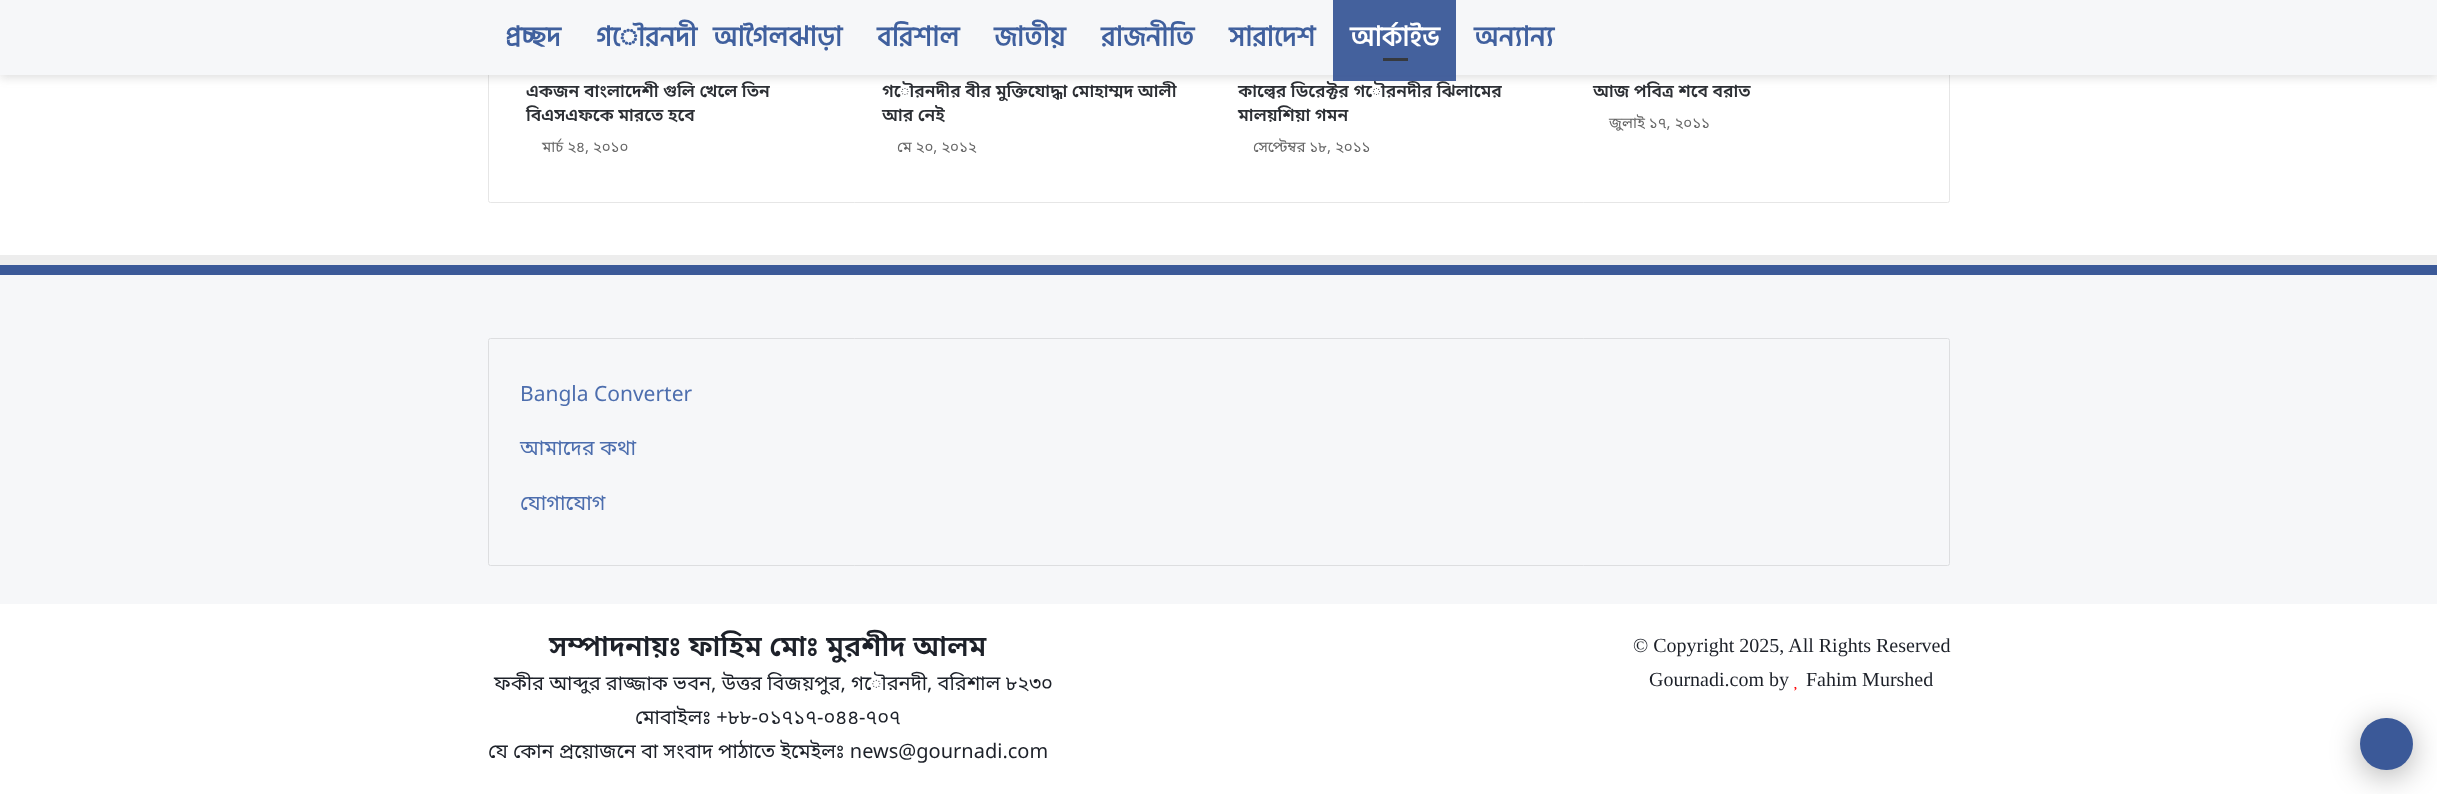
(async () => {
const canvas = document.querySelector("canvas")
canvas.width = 2437
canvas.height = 794
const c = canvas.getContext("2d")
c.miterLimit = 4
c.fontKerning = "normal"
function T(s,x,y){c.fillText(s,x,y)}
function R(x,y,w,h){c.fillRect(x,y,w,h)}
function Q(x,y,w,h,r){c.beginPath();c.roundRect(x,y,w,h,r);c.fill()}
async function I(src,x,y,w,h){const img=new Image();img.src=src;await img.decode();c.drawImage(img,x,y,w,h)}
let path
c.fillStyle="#fff"
R(0,0,2437,794)
c.beginPath()
c.roundRect(488.5,-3.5,1461,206,2)
c.strokeStyle="#e6e6e6"
c.stroke()
c.fillStyle="#63636333"
c.filter="blur(5px)"
c.beginPath()
c.rect(0,3,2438,75)
c.fill()
c.filter="none"
c.fillStyle="#f6f7f9"
R(0,0,2437,75)
c.font="bold 27.5px Hind Siliguri"
c.fillStyle="#40609e"
T("প্রচ্ছদ",505,46)
T("গৌরনদী",596,46)
T("আগৈলঝাড়া",713,46)
T("বরিশাল",877,46)
T("জাতীয়",994,46)
T("রাজনীতি",1101,46)
T("সারাদেশ",1229,46)
c.fillStyle="#3b5998f2"
R(1333,75,123,6)
c.fillStyle="#44619d"
R(1333,0,123,75)
c.fillStyle="#fff"
T("আর্কাইভ",1350,46)
c.fillStyle="#36393e"
R(1383,58,25,3)
c.fillStyle="#40609e"
T("অন্যান্য",1474,46)
c.font="600 17.5px Noto Sans Bengali"
c.fillStyle="#2c2f34"
T("একজন বাংলাদেশী গুলি খেলে তিন",526,97)
T("বিএসএফকে মারতে হবে",526,121)
c.font="15px Noto Sans Bengali"
c.fillStyle="#666"
T("মার্চ ২৪, ২০১০",542,152)
c.font="600 17.5px Noto Sans Bengali"
c.fillStyle="#2c2f34"
T("গৌরনদীর বীর মুক্তিযোদ্ধা মোহাম্মদ আলী",882,97)
T("আর নেই",882,121)
c.font="15px Noto Sans Bengali"
c.fillStyle="#666"
T("মে ২০, ২০১২",897,152)
c.font="600 17.5px Noto Sans Bengali"
c.fillStyle="#2c2f34"
T("কাল্বের ডিরেক্টর গৌরনদীর ঝিলামের",1238,97)
T("মালয়শিয়া গমন",1238,121)
c.font="15px Noto Sans Bengali"
c.fillStyle="#666"
T("সেপ্টেম্বর ১৮, ২০১১",1253,152)
c.font="600 17.5px Noto Sans Bengali"
c.fillStyle="#2c2f34"
T("আজ পবিত্র শবে বরাত",1593,97)
c.font="15px Noto Sans Bengali"
c.fillStyle="#666"
T("জুলাই ১৭, ২০১১",1609,128)
c.fillStyle="#f6f7f9"
R(0,275,2437,329)
c.fillStyle="#ededed"
path = new Path2D("M0 255v10h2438v329v-339z")
c.fill(path)
c.fillStyle="#3b5998"
R(0,265,2437,10)
c.beginPath()
c.roundRect(488.5,338.5,1461,227,2)
c.strokeStyle="#dddee0"
c.stroke()
c.font="21px Noto Sans Bengali"
c.fillStyle="#4d6eae"
T("Bangla Converter",520,401)
T("আমাদের কথা",520,455)
T("যোগাযোগ",520,510)
c.font="600 28.75px Noto Sans Bengali"
c.fillStyle="#1d2129"
T("সম্পাদনায়ঃ ফাহিম মোঃ মুরশীদ আলম",549,656)
c.font="20px Noto Sans Bengali"
T("ফকীর আব্দুর রাজ্জাক ভবন, উত্তর বিজয়পুর, গৌরনদী, বরিশাল ৮২৩০",494,690)
T("মোবাইলঃ +৮৮-০১৭১৭-০৪৪-৭০৭",635,724)
T("যে কোন প্রয়োজনে বা সংবাদ পাঠাতে ইমেইলঃ news@gournadi.com",488,758)
c.font="20px Liberation Serif"
T("© Copyright 2025, All Rights Reserved",1633,652)
T("Gournadi.com by",1649,686)
T("Fahim Murshed",1806,686)
await I("1.png",1794,686,3,5)
c.fillStyle="#0000004d"
c.filter="blur(15.5px)"
c.beginPath()
c.roundRect(2360,724,53,52,26)
c.fill()
c.filter="none"
c.fillStyle="#3b5998"
Q(2360,718,53,52,26)
})()
